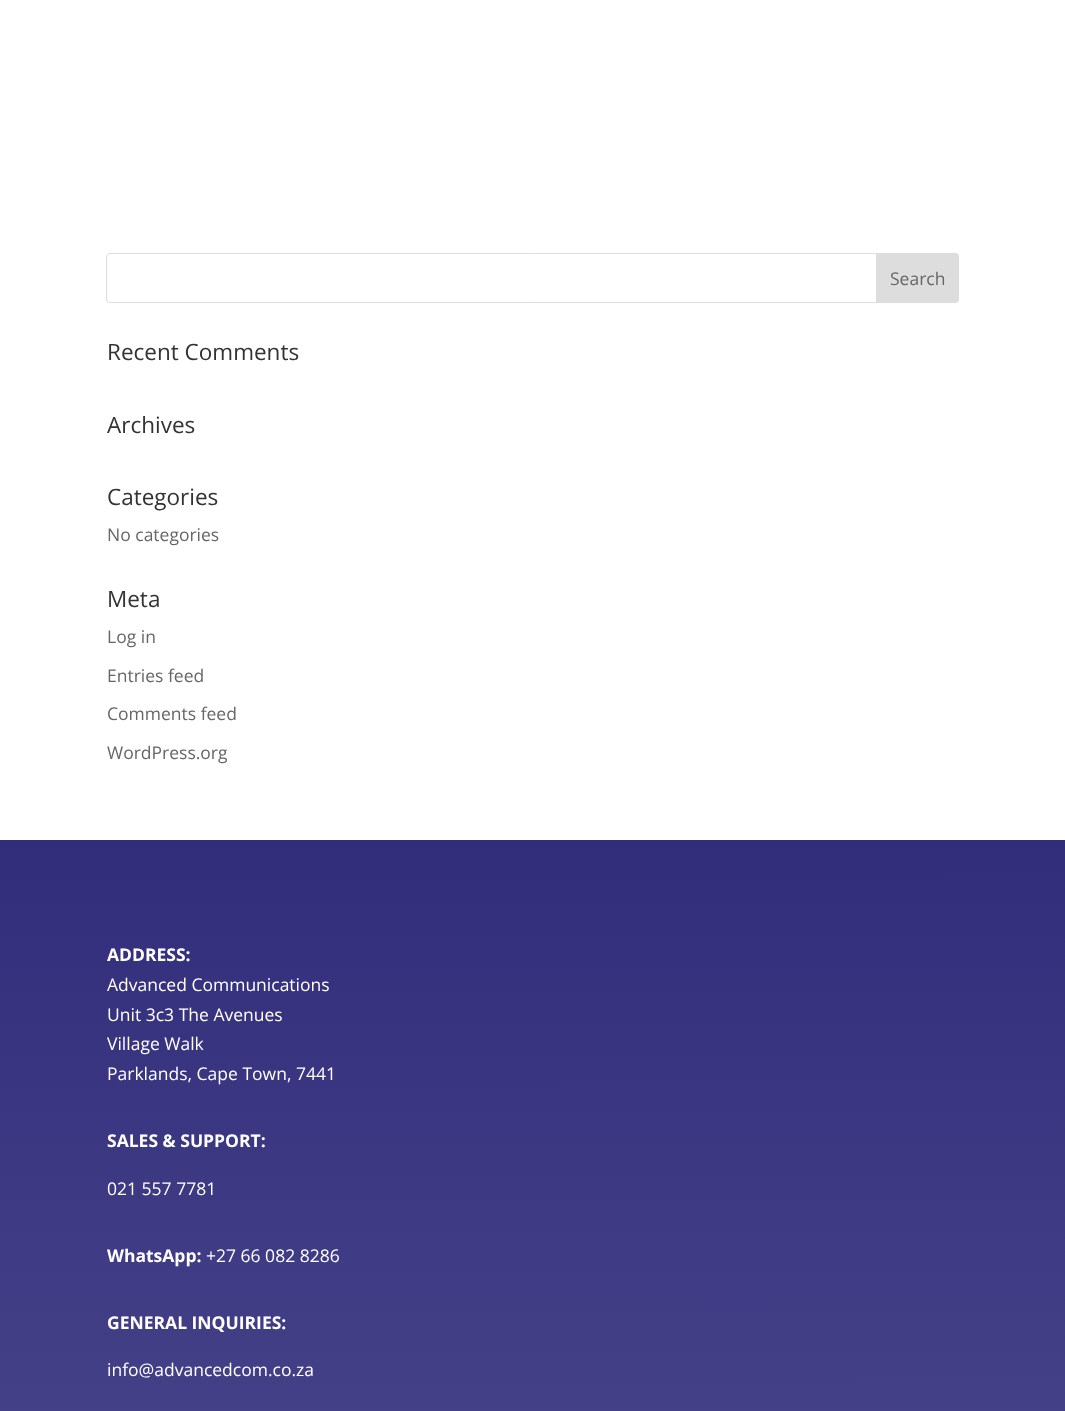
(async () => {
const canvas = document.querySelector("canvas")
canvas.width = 1065
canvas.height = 1411
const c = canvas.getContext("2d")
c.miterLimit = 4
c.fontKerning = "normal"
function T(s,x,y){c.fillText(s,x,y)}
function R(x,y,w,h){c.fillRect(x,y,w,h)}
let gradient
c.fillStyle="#fff"
R(0,0,1065,1411)
c.beginPath()
c.roundRect(106.5,253.5,852,49,3.5)
c.strokeStyle="#ddd"
c.stroke()
c.fillStyle="#ddd"
c.beginPath()
c.roundRect(876.5,253.5,82,49,[0,3.5,3.5,0])
c.fill()
c.stroke()
c.font="17.5px Open Sans"
c.fillStyle="#666"
T("Search",890,285)
c.font="22.5px Open Sans"
c.fillStyle="#333"
T("Recent Comments",107,360)
T("Archives",107,433)
T("Categories",107,505)
c.font="17.5px Open Sans"
c.fillStyle="#666"
T("No categories",107,541)
c.font="22.5px Open Sans"
c.fillStyle="#333"
T("Meta",107,607)
c.font="17.5px Open Sans"
c.fillStyle="#666"
T("Log in",107,643)
T("Entries feed",107,682)
T("Comments feed",107,720)
T("WordPress.org",107,759)
gradient = c.createLinearGradient(532,840,533,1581)
gradient.addColorStop(0,"#312d7b")
gradient.addColorStop(1,"#4a468b")
c.fillStyle = gradient
R(0,840,1065,571)
c.font="bold 17.5px Open Sans"
c.fillStyle="#fff"
T("ADDRESS:",107,961)
c.font="17.5px Open Sans"
T("Advanced Communications",107,991)
T("Unit 3c3 The Avenues",107,1021)
T("Village Walk",107,1050)
T("Parklands, Cape Town, 7441",107,1080)
c.font="bold 17.5px Open Sans"
T("SALES & SUPPORT:",107,1147)
c.font="17.5px Open Sans"
T("021 557 7781",107,1195)
c.font="bold 17.5px Open Sans"
T("WhatsApp:",107,1262)
c.font="17.5px Open Sans"
T("+27 66 082 8286",206,1262)
c.font="bold 17.5px Open Sans"
T("GENERAL INQUIRIES:",107,1329)
c.font="17.5px Open Sans"
T("info@advancedcom.co.za",107,1376)
})()
